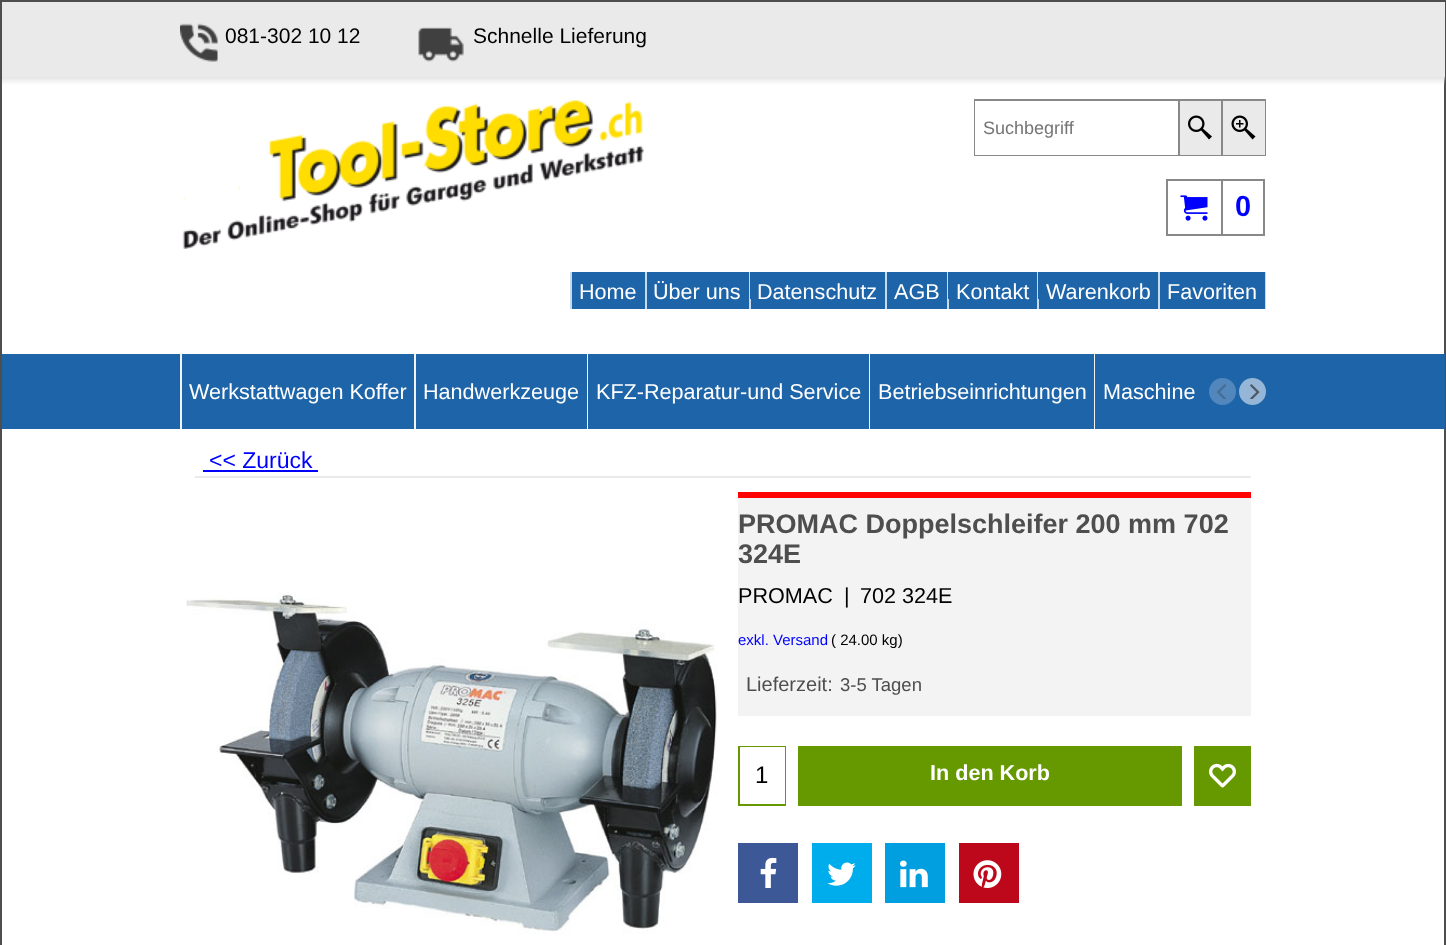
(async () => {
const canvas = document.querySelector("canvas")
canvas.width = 1446
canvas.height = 945
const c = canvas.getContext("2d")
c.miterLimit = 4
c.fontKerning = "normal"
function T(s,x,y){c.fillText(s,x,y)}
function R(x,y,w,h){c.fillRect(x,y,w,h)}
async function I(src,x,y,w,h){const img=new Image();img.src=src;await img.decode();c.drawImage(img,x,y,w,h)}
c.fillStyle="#fff"
R(0,0,1446,945)
c.strokeStyle="#4e4e4e"
c.lineWidth=2
c.strokeRect(1,1,1444,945)
c.save()
c.beginPath()
c.rect(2,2,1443,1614)
c.clip()
c.fillStyle="#dedede"
c.filter="blur(3px)"
c.beginPath()
c.rect(-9,5,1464,75)
c.fill()
c.filter="none"
c.restore()
c.fillStyle="#eaeaea"
R(2,2,1443,75)
await I("1.png",180,23,38,39)
c.font="21px Liberation Sans"
c.fillStyle="#000"
T("081-302 10 12",225,43)
await I("2.png",418,27,46,35)
T("Schnelle Lieferung",473,43)
await I("3.png",182,100,462,149)
c.strokeStyle="#888"
c.strokeRect(975,100,290,55)
c.fillStyle="#fff"
R(975,101,203,54)
c.font="18px Liberation Sans"
c.fillStyle="#757575"
T("Suchbegriff",983,134)
c.fillStyle="#eaeaea"
R(1180,101,41,54)
c.fillStyle="#888"
R(1178,101,2,54)
await I("4.png",1188,115,24,25)
c.fillStyle="#eaeaea"
R(1223,101,42,54)
c.fillStyle="#888"
R(1221,101,2,54)
await I("5.png",1231,115,25,25)
c.strokeRect(1167,180,55,55)
await I("6.png",1180,195,28,26)
c.strokeRect(1222,180,42,55)
c.font="bold 29px Liberation Sans"
c.fillStyle="#00f"
T("0",1235,216)
c.fillStyle="#1e64a8"
R(572,272,73,37)
c.fillStyle="#c6daed"
R(570,272,2,37)
c.font="21.6px Liberation Sans"
c.fillStyle="#fff"
T("Home",579,299)
c.fillStyle="#1e64a8"
R(647,272,102,37)
c.fillStyle="#c6daed"
R(645,272,2,37)
c.fillStyle="#fff"
T("Über uns",653,299)
c.fillStyle="#1e64a8"
R(751,299,134,10)
c.fillStyle="#c6daed"
R(749,272,2,37)
c.fillStyle="#1e64a8"
R(750,272,135,27)
c.fillStyle="#fff"
T("Datenschutz",757,299)
c.fillStyle="#1e64a8"
R(887,272,60,37)
c.fillStyle="#c6daed"
R(885,272,2,37)
c.fillStyle="#fff"
T("AGB",894,299)
c.fillStyle="#1e64a8"
R(949,299,88,10)
c.fillStyle="#c6daed"
R(947,272,2,37)
c.fillStyle="#1e64a8"
R(948,272,89,27)
c.fillStyle="#fff"
T("Kontakt",956,299)
c.fillStyle="#1e64a8"
R(1039,299,119,10)
c.fillStyle="#c6daed"
R(1037,272,2,37)
c.fillStyle="#1e64a8"
R(1038,272,120,27)
c.fillStyle="#fff"
T("Warenkorb",1046,299)
c.fillStyle="#1e64a8"
R(1160,272,105,37)
c.fillStyle="#c6daed"
R(1158,272,2,37)
c.fillStyle="#fff"
T("Favoriten",1167,299)
c.fillStyle="#c6daed"
R(1265,272,1,37)
c.fillStyle="#1e64a8"
R(2,354,1443,75)
c.fillStyle="#f3f3f3"
R(180,354,2,75)
c.fillStyle="#fff"
T("Werkstattwagen Koffer",189,399)
c.fillStyle="#f3f3f3"
R(414,354,2,75)
c.fillStyle="#fff"
T("Handwerkzeuge",423,399)
c.fillStyle="#f3f3f3"
R(587,354,1,75)
c.fillStyle="#fff"
T("KFZ-Reparatur-und Service",596,399)
c.fillStyle="#f3f3f3"
R(869,354,1,75)
c.fillStyle="#fff"
T("Betriebseinrichtungen",878,399)
c.fillStyle="#f3f3f3"
R(1094,354,1,75)
c.fillStyle="#fff"
T("Maschine",1103,399)
c.fillStyle="#5187bc"
c.beginPath()
c.arc(1222.5,391.5,13.5,0,7)
c.fill()
await I("7.png",1216,384,11,15)
c.fillStyle="#95b6d6"
c.beginPath()
c.arc(1252.5,391.5,13.5,0,7)
c.fill()
await I("8.png",1250,384,10,15)
c.fillStyle="#eaeaea"
R(195,476,1056,2)
c.font="23px Liberation Sans"
c.fillStyle="#00f"
T("<< Zurück",209,468)
R(203,470,115,2)
await I("9.png",186,592,531,342)
c.fillStyle="#ff0303"
R(738,492,513,6)
c.fillStyle="#f3f3f3"
R(738,498,513,218)
c.font="bold 27px Liberation Sans"
c.fillStyle="#4e4e4e"
T("PROMAC Doppelschleifer 200 mm 702",738,533)
T("324E",738,563)
c.font="21.6px Liberation Sans"
c.fillStyle="#000"
T("PROMAC",738,603)
T("|",844,603)
T("702 324E",860,603)
c.font="15px Liberation Sans"
c.fillStyle="#00f"
T("exkl. Versand",738,645)
c.fillStyle="#000"
T("( 24.00 kg)",831,645)
c.font="20px Liberation Sans"
c.fillStyle="#4e4e4e"
T("Lieferzeit:",746,691)
c.font="18.5px Liberation Sans"
T("3-5 Tagen",840,691)
c.fillStyle="#690"
R(738,746,48,60)
c.fillStyle="#fff"
R(740,747,45,57)
c.font="24px Liberation Sans"
c.fillStyle="#000"
T("1",755,783)
c.fillStyle="#690"
R(798,746,384,60)
c.font="bold 21.6px Liberation Sans"
c.fillStyle="#fff"
T("In den Korb",930,780)
c.fillStyle="#690"
R(1194,746,57,60)
await I("10.png",1209,763,27,25)
c.fillStyle="#3c5897"
R(738,843,60,60)
await I("11.png",760,857,17,31)
c.fillStyle="#00adec"
R(812,843,60,60)
await I("12.png",827,862,29,24)
c.fillStyle="#019fe0"
R(885,843,60,60)
await I("13.png",900,860,28,28)
c.fillStyle="#bd081c"
R(959,843,60,60)
await I("14.png",973,860,29,28)
})()
